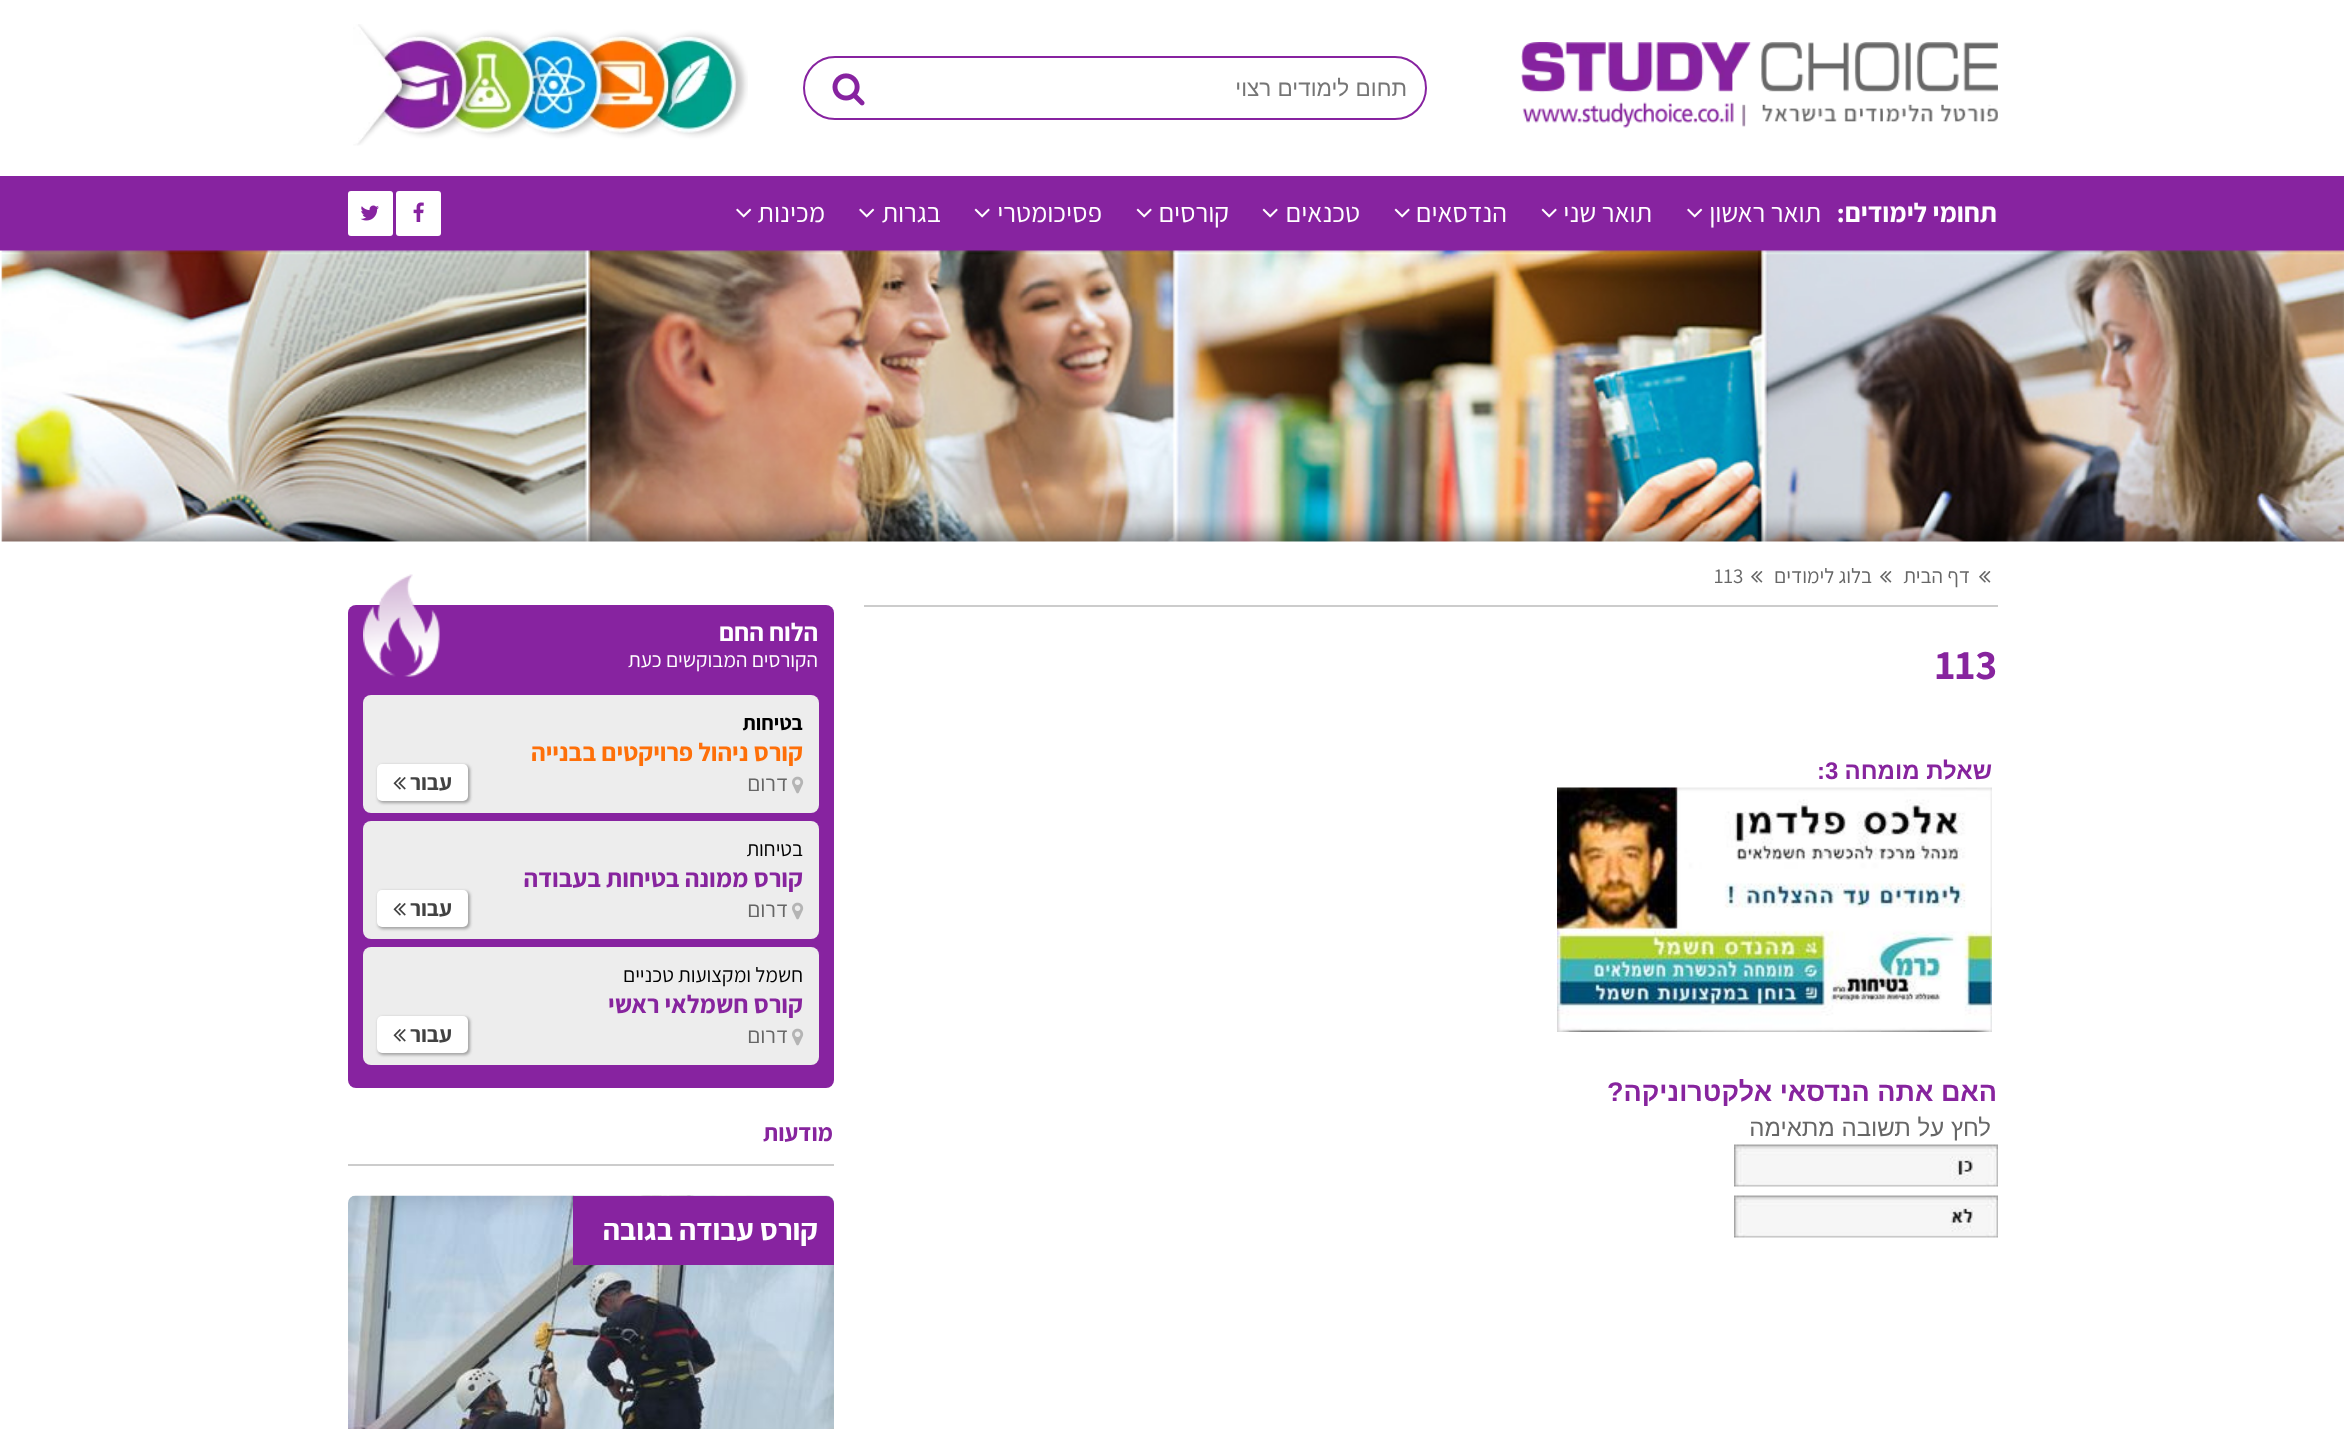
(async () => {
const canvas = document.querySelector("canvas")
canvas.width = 2344
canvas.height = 1429
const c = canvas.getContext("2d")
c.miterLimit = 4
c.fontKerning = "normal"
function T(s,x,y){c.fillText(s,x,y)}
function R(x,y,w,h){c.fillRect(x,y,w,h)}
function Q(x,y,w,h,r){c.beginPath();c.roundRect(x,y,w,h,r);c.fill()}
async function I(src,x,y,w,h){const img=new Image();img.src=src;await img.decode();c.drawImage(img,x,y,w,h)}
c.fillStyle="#fff"
R(0,0,2344,1429)
await I("1.png",1521,42,477,86)
c.beginPath()
c.roundRect(804,57,622,62,31)
c.strokeStyle="#8723a0"
c.lineWidth=2
c.stroke()
c.direction="rtl"
c.font="22.5px Liberation Sans"
c.fillStyle="#757575"
T("תחום לימודים רצוי",1407,96)
await I("2.png",832,73,33,33)
await I("3.png",353,24,395,122)
c.fillStyle="#8723a0"
R(0,176,2344,75)
c.font="bold 27px Assistant"
c.fillStyle="#fff"
T("תחומי לימודים:",1997,222)
c.font="27px Assistant"
T("תואר ראשון",1821,222)
await I("4.png",1687,208,16,10)
T("תואר שני",1652,222)
await I("5.png",1541,208,16,10)
T("הנדסאים",1507,222)
await I("5.png",1394,208,16,10)
T("טכנאים",1360,222)
await I("5.png",1262,208,16,10)
T("קורסים",1229,222)
await I("5.png",1136,208,16,10)
T("פסיכומטרי",1102,222)
await I("5.png",974,208,16,10)
T("בגרות",941,222)
await I("4.png",859,208,16,10)
T("מכינות",825,222)
await I("4.png",736,208,16,10)
Q(396,191,45,45,3)
await I("6.png",413,202,11,20)
Q(348,191,45,45,3)
await I("7.png",360,205,19,16)
await I("8.png",0,250,2344,292)
c.fillStyle="#ccc"
R(864,605,1134,2)
await I("9.png",1979,571,12,12)
c.font="21px Assistant"
c.fillStyle="#666"
T("דף הבית",1970,583)
await I("9.png",1880,571,12,12)
T("בלוג לימודים",1872,583)
await I("9.png",1751,571,12,12)
c.direction="ltr"
T("113",1714,583)
c.font="bold 42px Assistant"
c.fillStyle="#87249e"
T("113",1935,679)
c.direction="rtl"
c.font="bold 24px Liberation Sans"
T("שאלת מומחה",1992,779)
c.direction="ltr"
T(":3",1817,779)
await I("10.png",1557,787,435,245)
c.direction="rtl"
c.font="bold 27px Liberation Sans"
T("האם אתה הנדסאי אלקטרוניקה?",1997,1101)
c.font="24px Liberation Sans"
c.fillStyle="#666"
T("לחץ על תשובה מתאימה",1991,1136)
await I("11.png",1734,1144,264,43)
await I("12.png",1734,1195,264,43)
c.fillStyle="#8723a0"
Q(348,605,486,483,8)
c.font="bold 25.5px Assistant"
c.fillStyle="#fff"
T("הלוח החם",818,641)
await I("13.png",363,574,77,103)
c.font="21px Assistant"
T("הקורסים המבוקשים כעת",818,667)
c.fillStyle="#ededed"
Q(363,695,456,118,8)
c.font="bold 21px Assistant"
c.fillStyle="#000"
T("בטיחות",803,730)
c.font="bold 25.5px Assistant"
c.fillStyle="#fe6f08"
T("קורס ניהול פרויקטים בבנייה",803,761)
await I("14.png",792,776,12,18)
c.font="22.5px Assistant"
c.fillStyle="#666"
T("דרום",788,791)
c.fillStyle="#a2a2a2"
c.filter="blur(1.5px)"
c.beginPath()
c.roundRect(378,765,92,38,5)
c.fill()
c.filter="none"
c.fillStyle="#fff"
Q(377,764,91,37,5)
c.font="bold 22.5px Assistant"
c.fillStyle="#424242"
T("עבור",452,790)
await I("15.png",393,777,13,13)
c.fillStyle="#ededed"
Q(363,821,456,118,8)
c.font="21px Assistant"
c.fillStyle="#000"
T("בטיחות",803,856)
c.font="bold 25.5px Assistant"
c.fillStyle="#87249e"
T("קורס ממונה בטיחות בעבודה",803,887)
await I("14.png",792,902,12,18)
c.font="22.5px Assistant"
c.fillStyle="#666"
T("דרום",788,917)
c.fillStyle="#a2a2a2"
c.filter="blur(1.5px)"
c.beginPath()
c.roundRect(378,891,92,38,5)
c.fill()
c.filter="none"
c.fillStyle="#fff"
Q(377,890,91,37,5)
c.font="bold 22.5px Assistant"
c.fillStyle="#424242"
T("עבור",452,916)
await I("15.png",393,903,13,13)
c.fillStyle="#ededed"
Q(363,947,456,118,8)
c.font="21px Assistant"
c.fillStyle="#000"
T("חשמל ומקצועות טכניים",803,982)
c.font="bold 25.5px Assistant"
c.fillStyle="#87249e"
T("קורס חשמלאי ראשי",803,1013)
await I("14.png",792,1028,12,18)
c.font="22.5px Assistant"
c.fillStyle="#666"
T("דרום",788,1043)
c.fillStyle="#a2a2a2"
c.filter="blur(1.5px)"
c.beginPath()
c.roundRect(378,1017,92,38,5)
c.fill()
c.filter="none"
c.fillStyle="#fff"
Q(377,1016,91,37,5)
c.font="bold 22.5px Assistant"
c.fillStyle="#424242"
T("עבור",452,1042)
await I("15.png",393,1029,13,13)
c.fillStyle="#ccc"
R(348,1164,486,2)
c.font="bold 24px Assistant"
c.fillStyle="#87249e"
T("מודעות",833,1141)
await I("16.png",348,1195,486,234)
c.fillStyle="#8723a0"
c.beginPath()
c.roundRect(573,1196,261,69,[0,8,0,0])
c.fill()
c.font="bold 30px Assistant"
c.fillStyle="#fff"
T("קורס עבודה בגובה",818,1240)
})()
